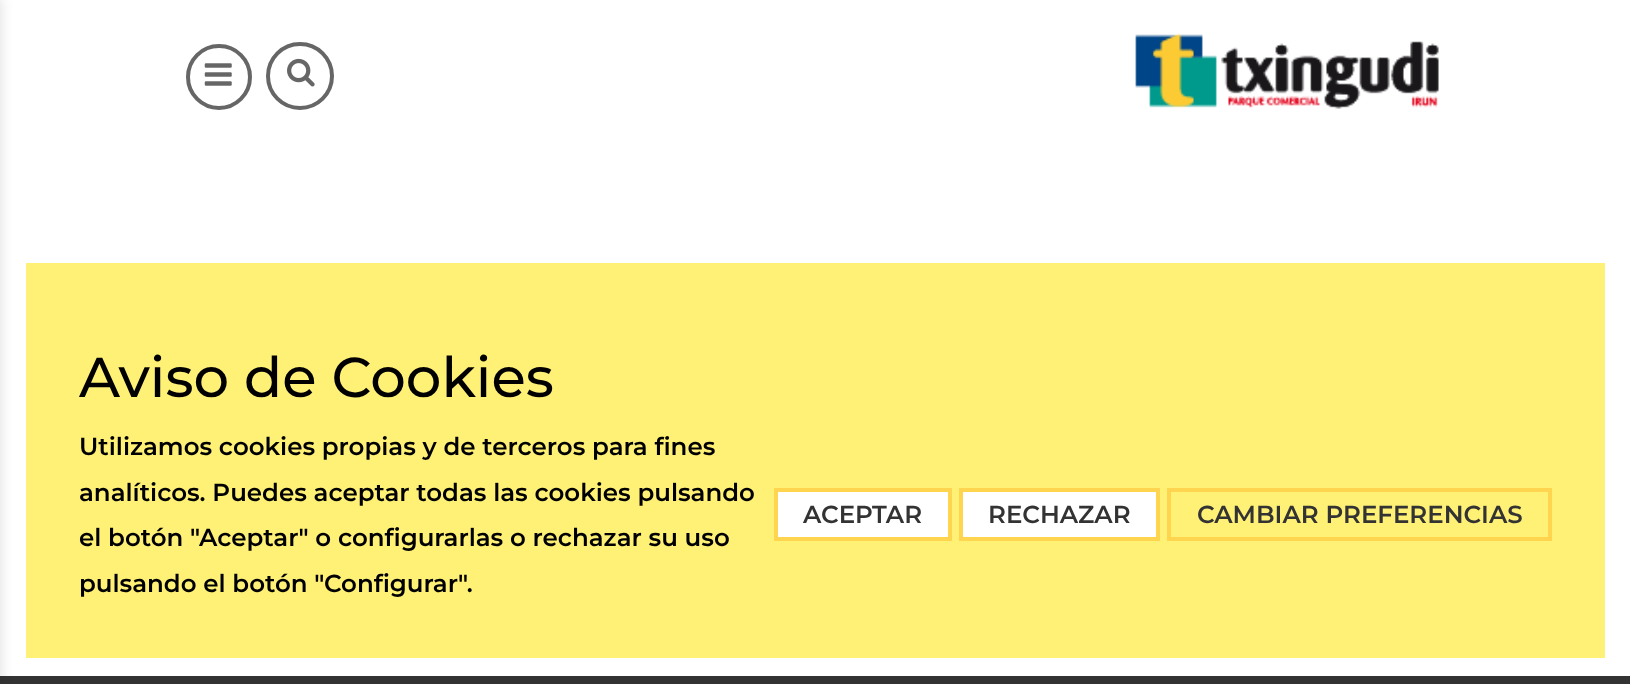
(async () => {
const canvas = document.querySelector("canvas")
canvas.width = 1630
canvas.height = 684
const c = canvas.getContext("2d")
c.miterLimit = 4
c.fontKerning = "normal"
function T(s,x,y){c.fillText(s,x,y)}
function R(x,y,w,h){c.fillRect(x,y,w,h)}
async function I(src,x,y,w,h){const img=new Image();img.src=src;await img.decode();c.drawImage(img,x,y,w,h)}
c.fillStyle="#fff"
R(0,0,1630,684)
c.fillStyle="#333"
R(0,676,1630,8)
c.fillStyle="#0000001a"
c.filter="blur(6px)"
c.beginPath()
c.rect(-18,-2,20,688)
c.fill()
c.filter="none"
c.beginPath()
c.arc(219,77,31,0,7)
c.strokeStyle="#666"
c.lineWidth=4
c.stroke()
await I("1.png",204,63,28,23)
c.beginPath()
c.arc(300,76,32,0,7)
c.stroke()
await I("2.png",287,58,28,29)
await I("3.png",1135,33,304,76)
c.fillStyle="#fff176"
R(26,263,1579,395)
c.font="500 56px Montserrat"
c.fillStyle="#000"
T("Aviso de Cookies",79,397)
c.font="600 24.5px Montserrat"
T("Utilizamos cookies propias y de terceros para fines",79,455)
T("analíticos. Puedes aceptar todas las cookies pulsando",79,501)
T("el botón \"Aceptar\" o configurarlas o rechazar su uso",79,546)
T("pulsando el botón \"Configurar\".",79,592)
c.fillStyle="#fff"
c.beginPath()
c.rect(776,490,174,49)
c.fill()
c.strokeStyle="#ffd54f"
c.stroke()
c.fillStyle="#333"
T("ACEPTAR",803,523)
c.fillStyle="#fff"
c.beginPath()
c.rect(961,490,197,49)
c.fill()
c.stroke()
c.fillStyle="#333"
T("RECHAZAR",988,523)
c.strokeRect(1169,490,381,49)
T("CAMBIAR PREFERENCIAS",1197,523)
})()
